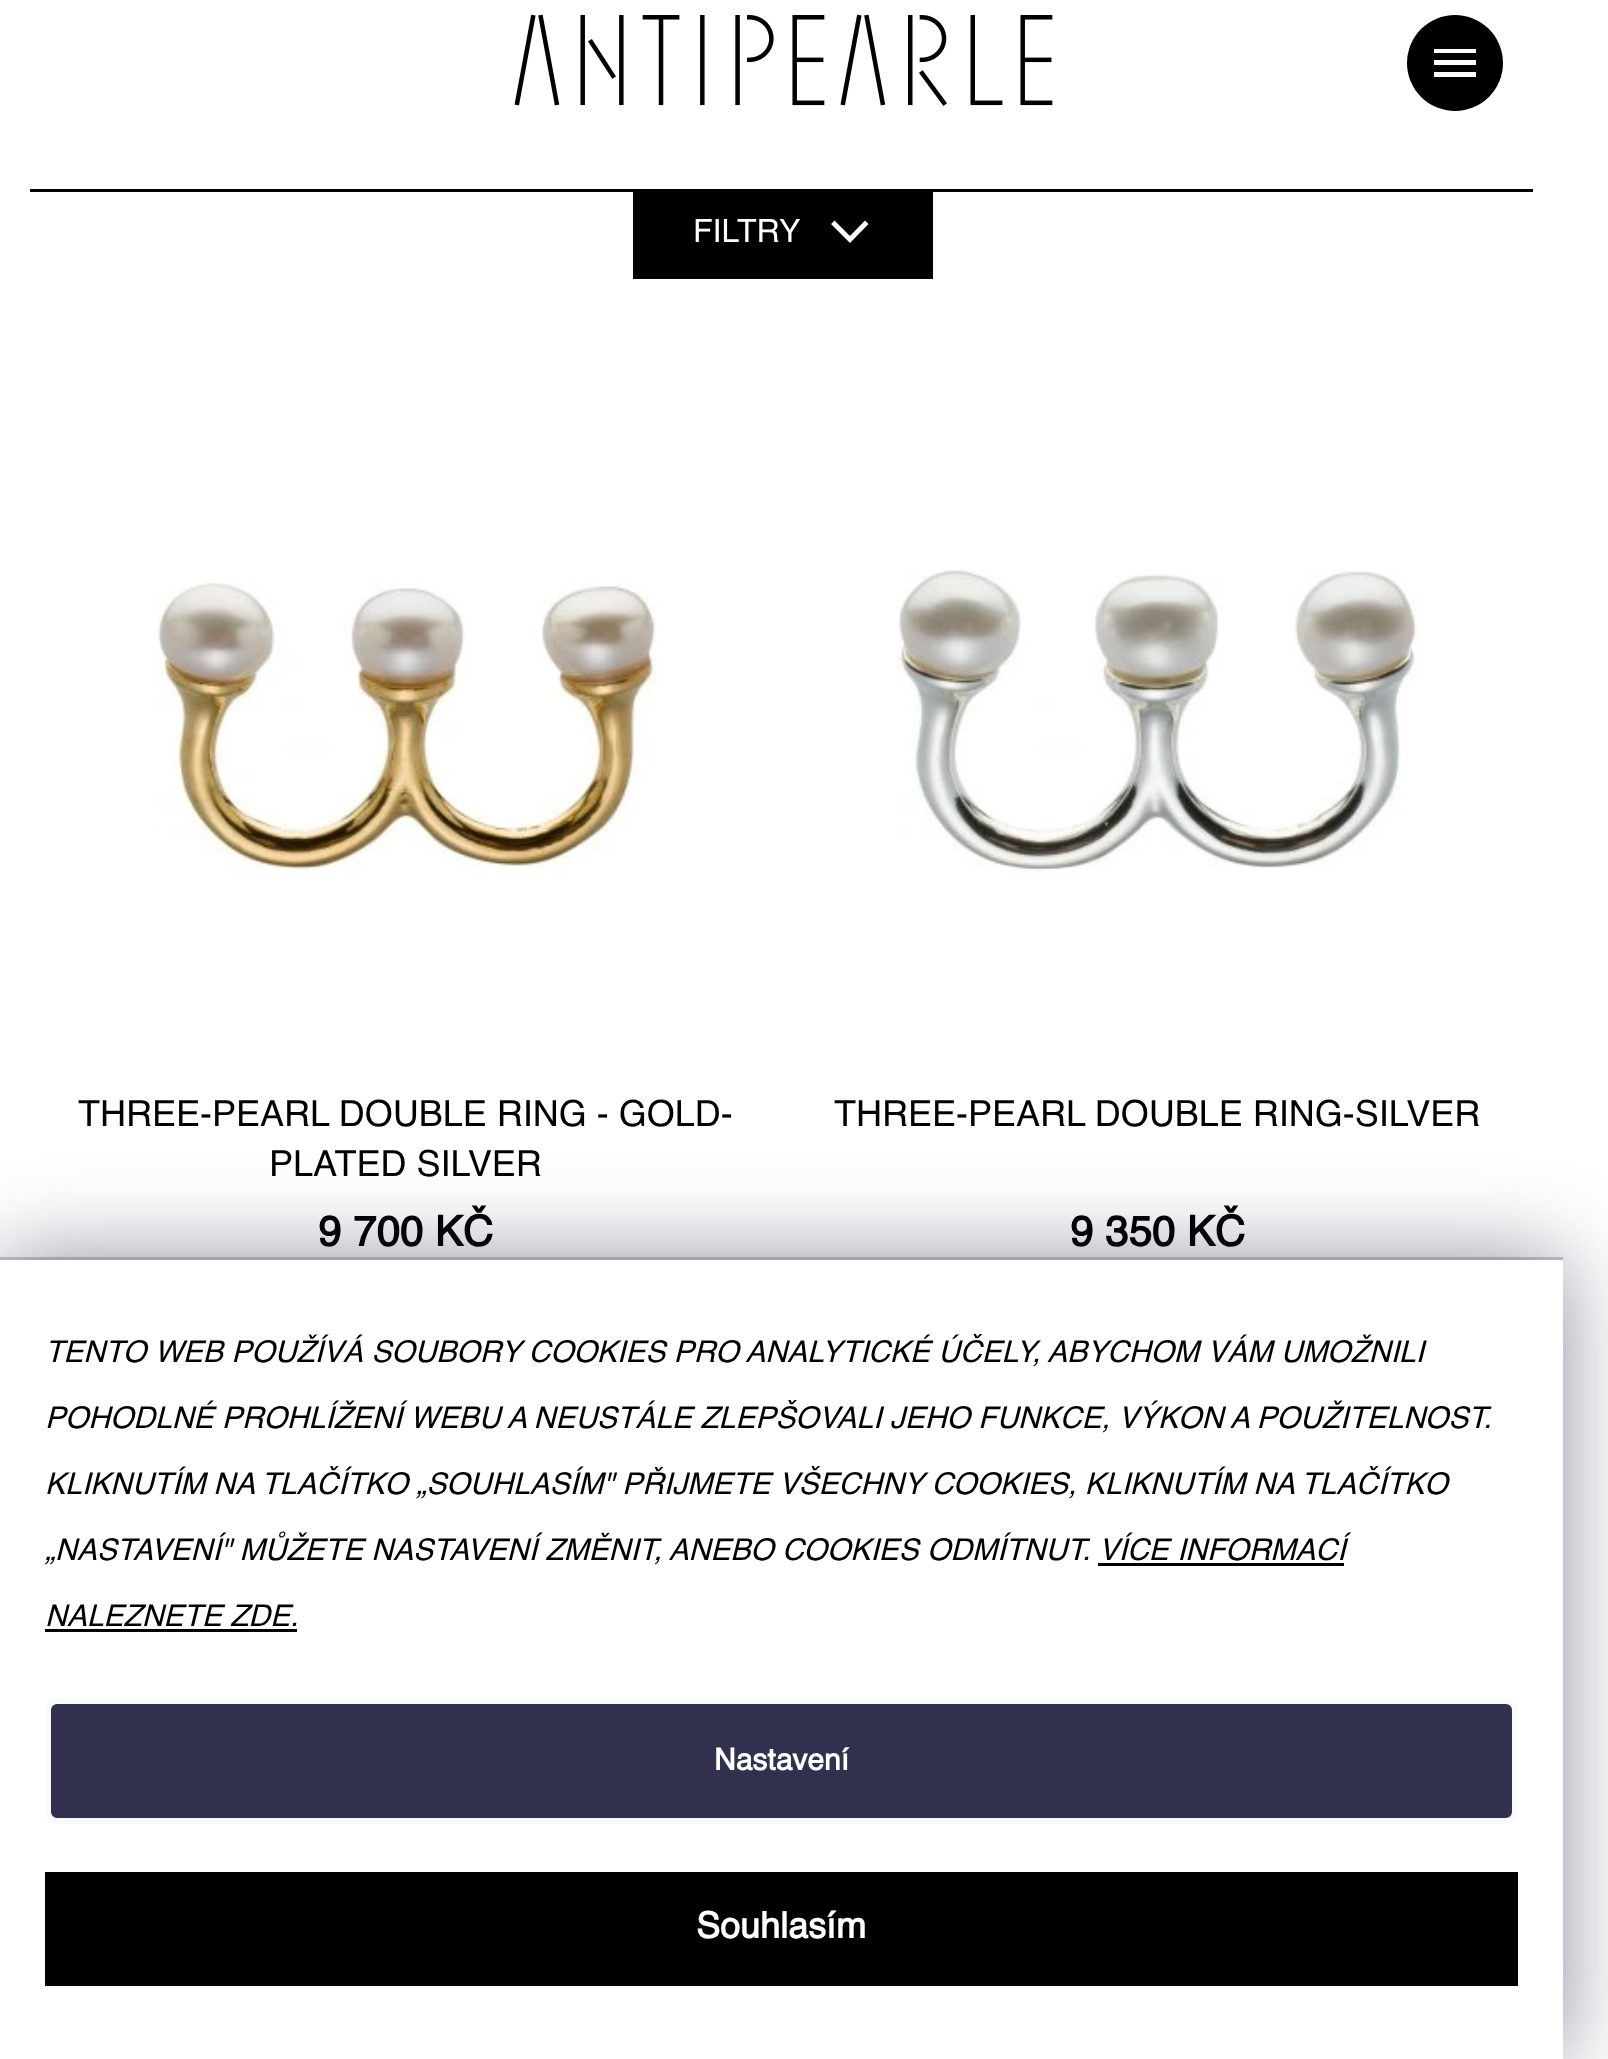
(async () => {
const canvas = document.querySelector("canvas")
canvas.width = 1608
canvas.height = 2059
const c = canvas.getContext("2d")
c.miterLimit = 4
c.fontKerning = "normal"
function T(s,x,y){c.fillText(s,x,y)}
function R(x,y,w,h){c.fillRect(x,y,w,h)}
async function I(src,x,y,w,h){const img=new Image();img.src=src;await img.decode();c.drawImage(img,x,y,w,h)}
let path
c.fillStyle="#fff"
R(0,0,1608,2059)
await I("1.png",514,14,539,92)
c.fillStyle="#000"
c.beginPath()
c.arc(1455,63,48,0,7)
c.fill()
c.fillStyle="#fff"
path = new Path2D("M1434 77h42v-5h-42zm0-12h42v-5h-42zm0-16v4h42v-4z")
c.fill(path)
c.fillStyle="#000"
R(30,189,1503,3)
R(633,192,300,87)
c.font="32px Helvetica"
c.fillStyle="#fff"
T("FILTRY",693,242)
path = new Path2D("M831 224l3.5-3.5l15.5 15.5l15-15.5l3.5 3.5l-18.5 19z")
c.fill(path)
await I("2.png",157,582,500,295)
c.font="36px Helvetica"
c.fillStyle="#000"
T("THREE-PEARL DOUBLE RING - GOLD-",78,1126)
T("PLATED SILVER",269,1176)
c.font="bold 42px Helvetica"
T("9 700 KČ",318,1246)
await I("3.png",896,569,524,308)
c.font="36px Helvetica"
T("THREE-PEARL DOUBLE RING-SILVER",834,1126)
c.font="bold 42px Helvetica"
T("9 350 KČ",1070,1246)
c.fillStyle="#ccc"
R(0,1257,1563,3)
c.fillStyle="#1b193980"
c.filter="blur(45px)"
c.beginPath()
c.rect(0,1260,1563,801)
c.fill()
c.filter="none"
c.fillStyle="#fff"
R(0,1260,1563,799)
c.font="italic 30px Helvetica"
c.fillStyle="#000"
T("TENTO WEB POUŽÍVÁ SOUBORY COOKIES PRO ANALYTICKÉ ÚČELY, ABYCHOM VÁM UMOŽNILI",45,1362)
T("POHODLNÉ PROHLÍŽENÍ WEBU A NEUSTÁLE ZLEPŠOVALI JEHO FUNKCE, VÝKON A POUŽITELNOST.",45,1428)
T("KLIKNUTÍM NA TLAČÍTKO „SOUHLASÍM\" PŘIJMETE VŠECHNY COOKIES, KLIKNUTÍM NA TLAČÍTKO",45,1494)
T("„NASTAVENÍ\" MŮŽETE NASTAVENÍ ZMĚNIT, ANEBO COOKIES ODMÍTNUT. VÍCE INFORMACÍ",45,1560)
R(1098,1563,246,3)
T("NALEZNETE ZDE.",45,1626)
R(45,1629,252,3)
c.fillStyle="#31304f"
c.beginPath()
c.roundRect(48,1701,1467,120,9)
c.fill()
c.strokeStyle="#f8fafb"
c.lineWidth=6
c.stroke()
c.font="bold 30px Helvetica"
c.fillStyle="#fff"
T("Nastavení",714,1770)
c.fillStyle="#000"
R(45,1872,1473,114)
c.font="bold 36px Helvetica"
c.fillStyle="#fff"
T("Souhlasím",696,1938)
})()
